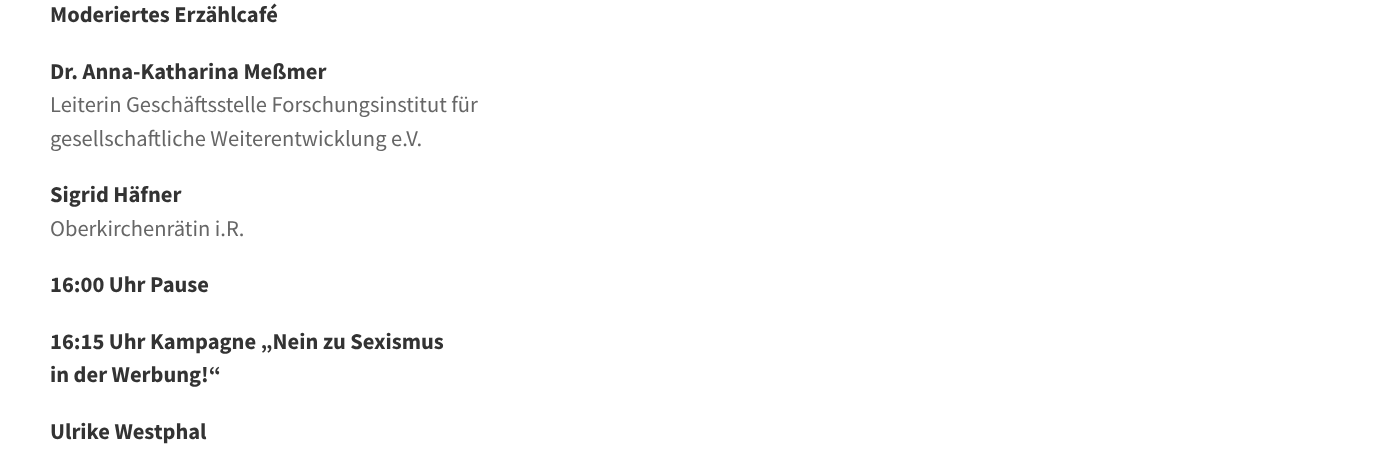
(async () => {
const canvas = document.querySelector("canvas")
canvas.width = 1373
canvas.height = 458
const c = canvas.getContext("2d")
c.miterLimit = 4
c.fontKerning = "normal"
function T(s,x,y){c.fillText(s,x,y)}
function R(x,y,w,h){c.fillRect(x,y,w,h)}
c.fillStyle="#fff"
R(0,0,1373,458)
c.font="bold 22.5px Source Sans Pro"
c.fillStyle="#333"
T("Moderiertes Erzählcafé",50,22)
T("Dr. Anna-Katharina Meßmer",50,79)
c.font="22.5px Source Sans Pro"
c.fillStyle="#666"
T("Leiterin Geschäftsstelle Forschungsinstitut für",50,112)
T("gesellschaftliche Weiterentwicklung e.V.",50,146)
c.font="bold 22.5px Source Sans Pro"
c.fillStyle="#333"
T("Sigrid Häfner",50,202)
c.font="22.5px Source Sans Pro"
c.fillStyle="#666"
T("Oberkirchenrätin i.R.",50,236)
c.font="bold 22.5px Source Sans Pro"
c.fillStyle="#333"
T("16:00 Uhr Pause",50,292)
T("16:15 Uhr Kampagne „Nein zu Sexismus",50,349)
T("in der Werbung!“",50,382)
T("Ulrike Westphal",50,439)
})()
